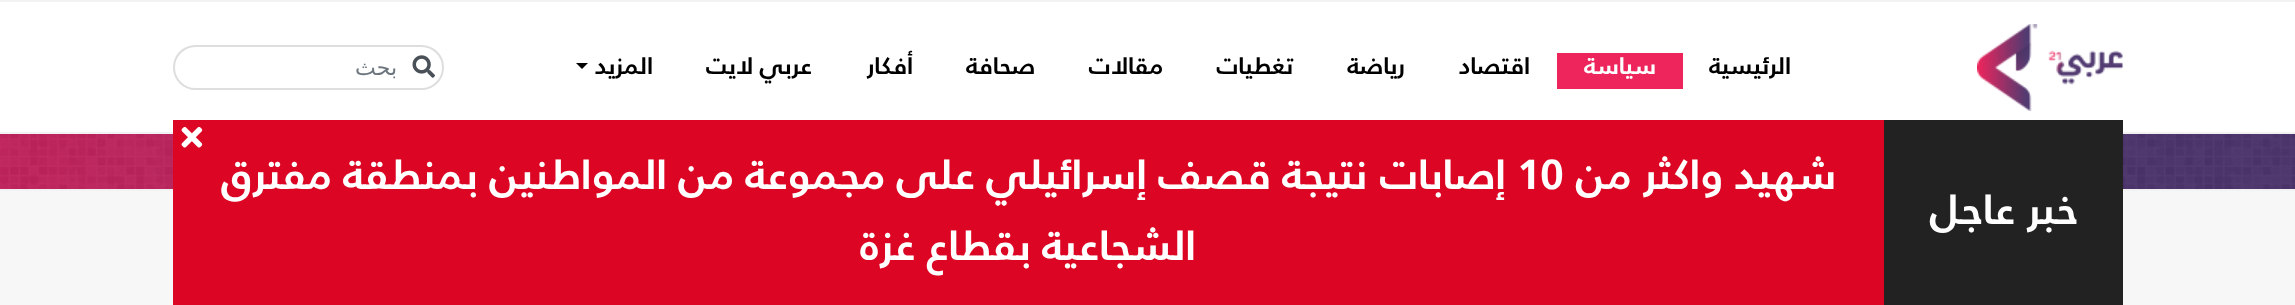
(async () => {
const canvas = document.querySelector("canvas")
canvas.width = 2295
canvas.height = 305
const c = canvas.getContext("2d")
c.miterLimit = 4
c.fontKerning = "normal"
function T(s,x,y){c.fillText(s,x,y)}
function R(x,y,w,h){c.fillRect(x,y,w,h)}
async function I(src,x,y,w,h){const img=new Image();img.src=src;await img.decode();c.drawImage(img,x,y,w,h)}
let path
c.fillStyle="#f7f7f7"
R(0,0,2295,305)
c.fillStyle="#fff"
R(0,2,2295,130)
c.fillStyle="#f2f2f2"
R(0,0,2295,2)
R(0,189,2295,2)
R(0,132,2295,2)
await I("1.png",1977,24,146,87)
c.direction="rtl"
c.font="bold 24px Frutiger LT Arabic"
c.fillStyle="#000"
T("الرئيسية",1791,74)
c.fillStyle="#ed255c"
R(1557,53,126,36)
c.fillStyle="#fff"
T("سياسة",1656,74)
c.fillStyle="#000"
T("اقتصاد",1530,74)
T("رياضة",1405,74)
T("تغطيات",1293,74)
T("مقالات",1163,74)
T("صحافة",1035,74)
T("أفكار",913,74)
T("عربي لايت",812,74)
T("المزيد",653,74)
path = new Path2D("M576 63h12l-6 6z")
c.fill(path)
c.beginPath()
c.roundRect(174,46,269,43,21.5)
c.strokeStyle="#dedede"
c.lineWidth=2
c.stroke()
await I("2.png",412,55,23,23)
c.font="22px DejaVu Sans"
c.fillStyle="#6c757d"
T("بحث",397,75)
await I("3.png",0,134,2295,55)
c.fillStyle="#dc0624"
R(173,120,1711,185)
await I("4.png",181,126,22,22)
c.fillStyle="#222"
R(1884,120,239,185)
c.font="bold 42px Frutiger LT Arabic"
c.fillStyle="#fff"
T("خبر عاجل",2078,224)
T("شهيد واكثر من",1836,189)
c.direction="ltr"
T("10",1517,189)
c.direction="rtl"
T("إصابات نتيجة قصف إسرائيلي على مجموعة من المواطنين بمنطقة مفترق",1506,189)
T("الشجاعية بقطاع غزة",1196,260)
})()
